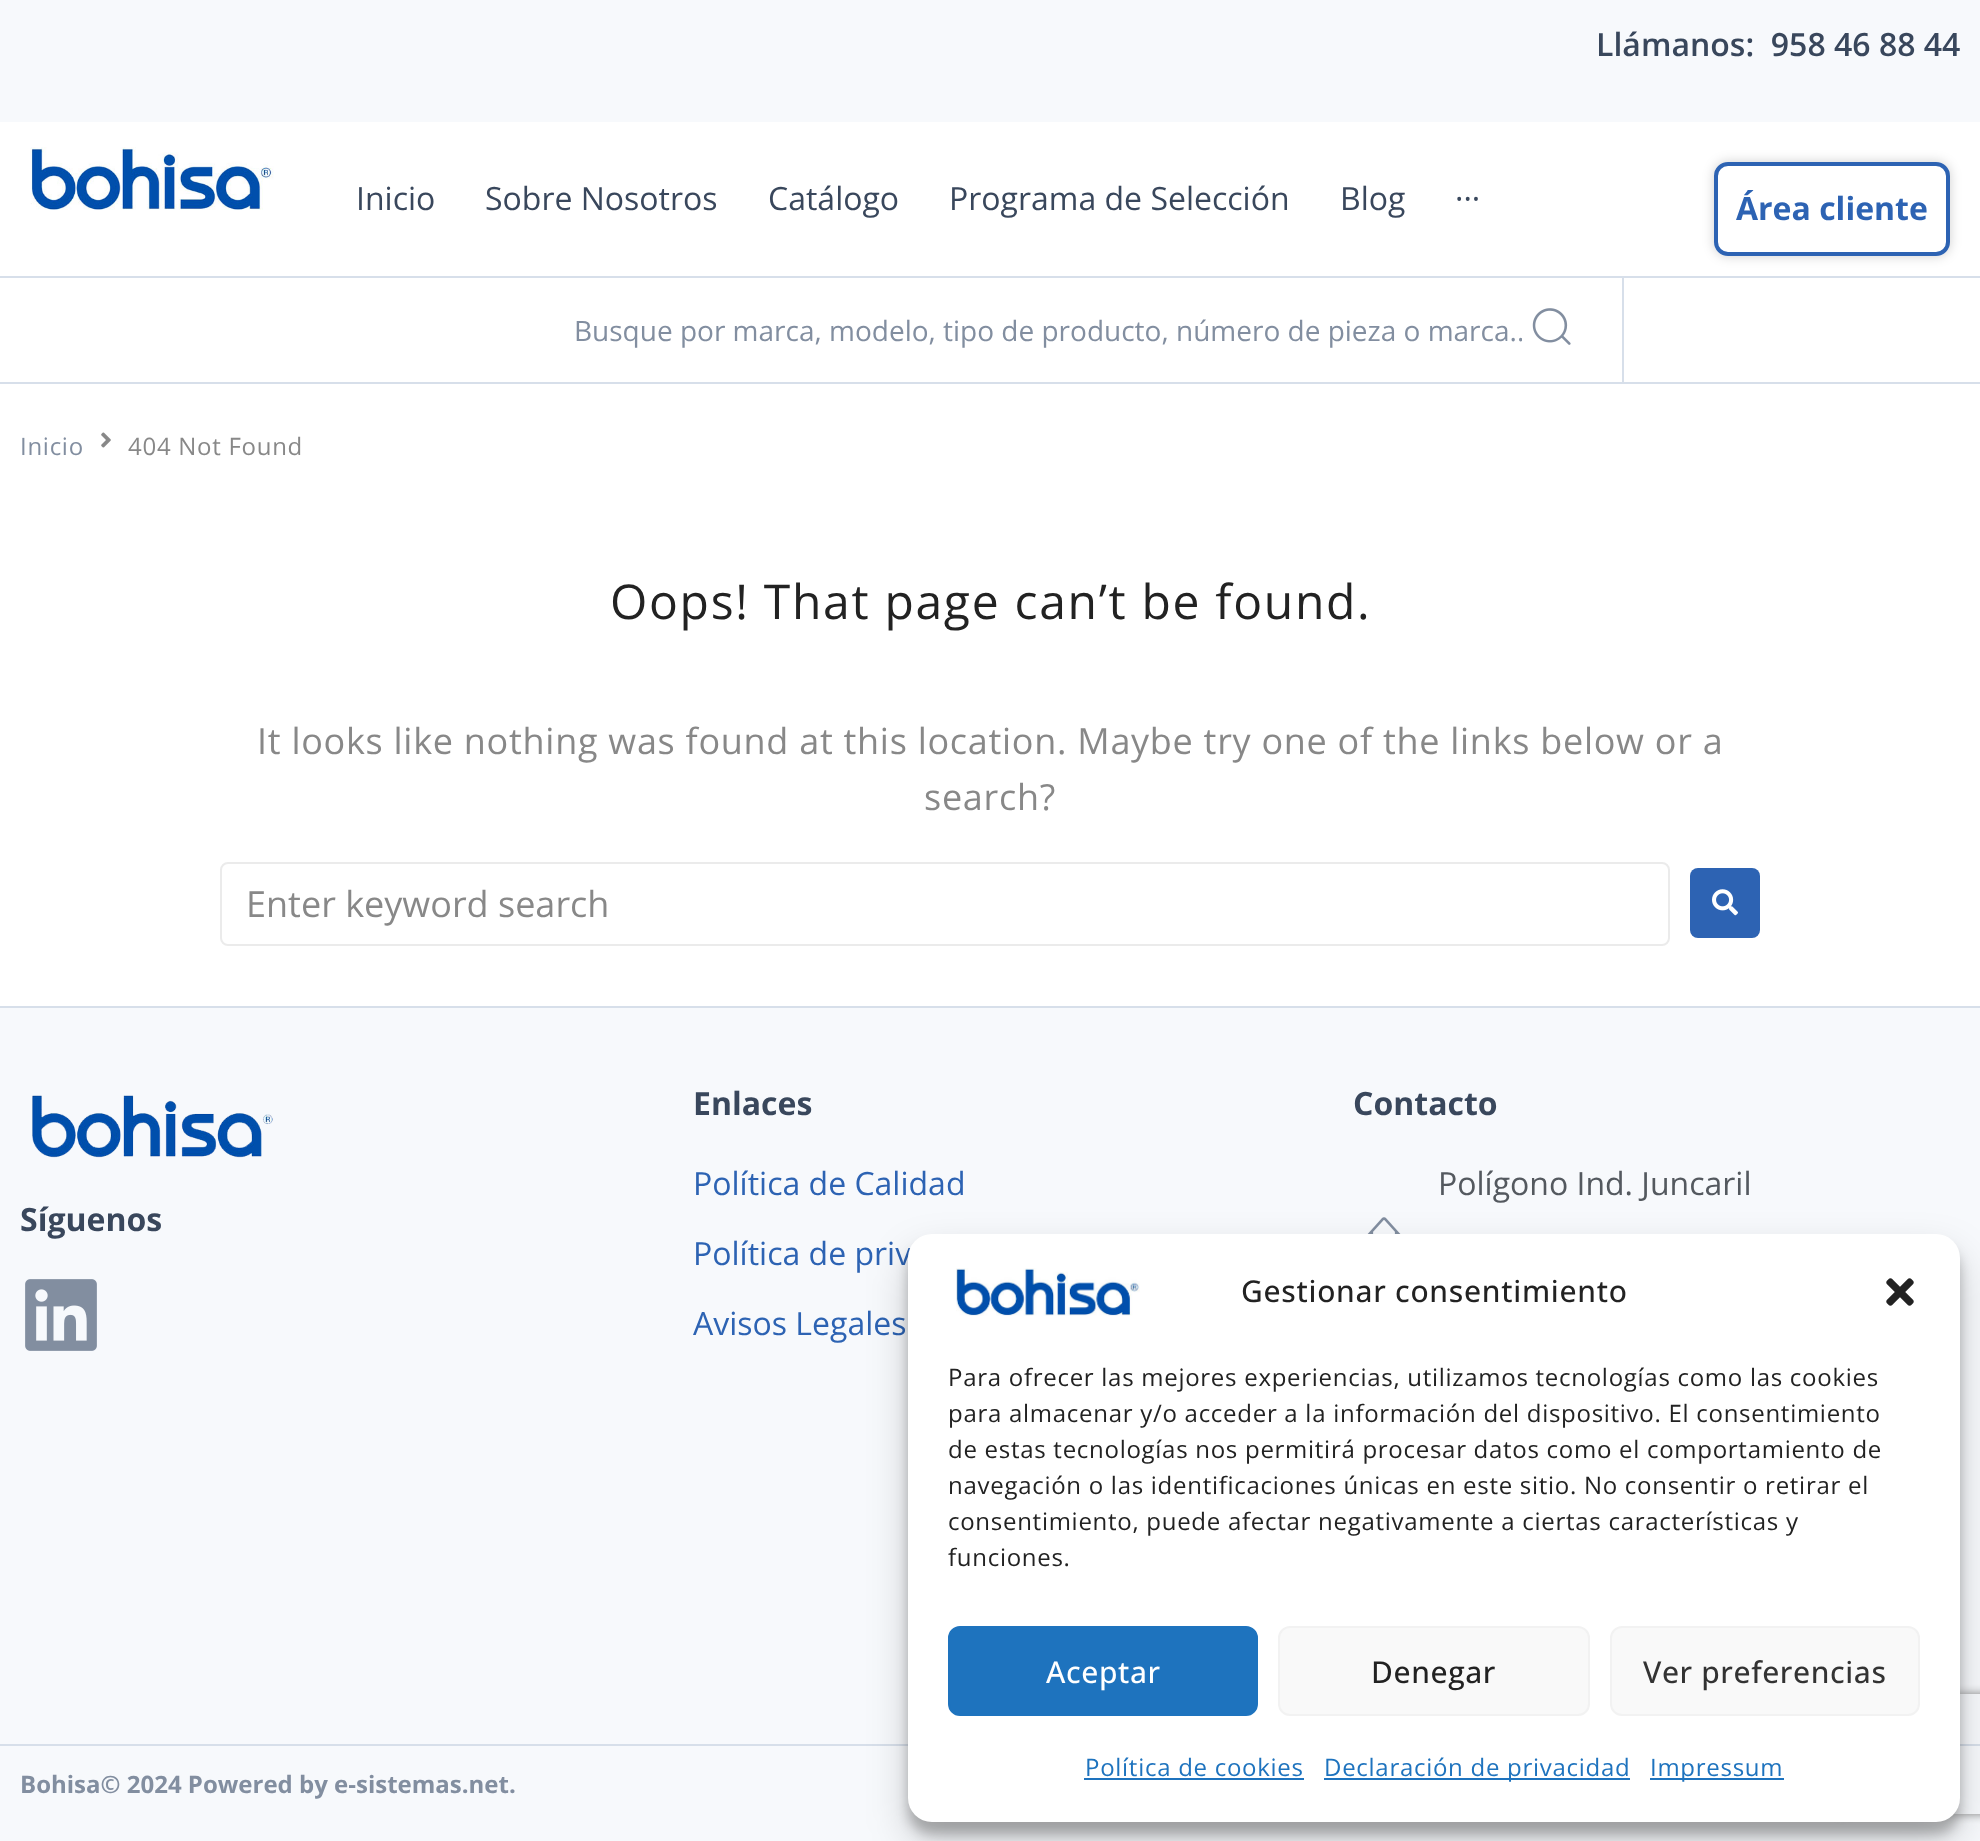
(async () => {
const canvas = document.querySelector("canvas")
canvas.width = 1980
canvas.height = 1841
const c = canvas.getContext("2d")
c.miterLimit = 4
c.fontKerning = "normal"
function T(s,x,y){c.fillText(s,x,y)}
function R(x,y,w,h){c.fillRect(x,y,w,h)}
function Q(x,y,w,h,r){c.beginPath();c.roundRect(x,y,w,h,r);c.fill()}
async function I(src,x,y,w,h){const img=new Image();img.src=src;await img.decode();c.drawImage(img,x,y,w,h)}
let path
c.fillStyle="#fff"
R(0,0,1980,1841)
c.fillStyle="#f7f9fc"
R(0,0,1980,122)
c.font="600 32px Open Sans"
c.fillStyle="#39475c"
T("Llámanos:  958 46 88 44",1596,56)
c.fillStyle="#d7dfea"
R(0,276,1980,2)
await I("1.png",30,147,244,63)
c.font="32px Open Sans"
c.fillStyle="#39475c"
T("Inicio",356,210)
T("Sobre Nosotros",485,210)
T("Catálogo",768,210)
T("Programa de Selección",949,210)
T("Blog",1340,210)
T("···",1455,210)
c.save()
path = new Path2D("M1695 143h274v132h-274zm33 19h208c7.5 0 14 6.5 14 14v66c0 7.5-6.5 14-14 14h-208c-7.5 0-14-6.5-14-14v-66c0-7.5 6.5-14 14-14z")
c.clip(path,"evenodd")
c.fillStyle="#00000030"
c.filter="blur(6px)"
c.beginPath()
c.roundRect(1714,162,236,94,14)
c.fill()
c.filter="none"
c.restore()
c.beginPath()
c.roundRect(1716,164,232,90,12)
c.strokeStyle="#2d63b3"
c.lineWidth=4
c.stroke()
c.font="bold 32px Open Sans"
c.fillStyle="#2d63b3"
T("Área cliente",1736,220)
c.fillStyle="#d7dfea"
R(0,382,1980,2)
R(1622,278,2,104)
c.save()
c.beginPath()
c.rect(574,312,948,38)
c.clip()
c.font="28px Open Sans"
c.fillStyle="#828ea0"
T("Busque por marca, modelo, tipo de producto, número de pieza o marca..",574,341)
c.restore()
await I("2.png",1532,308,39,37)
c.letterSpacing="0.72px"
c.font="24px Open Sans"
c.fillStyle="#828ea0"
T("Inicio",20,455)
await I("3.png",101,432,10,16)
c.fillStyle="#888"
T("404 Not Found",128,455)
c.letterSpacing="1.7px"
c.font="48px Open Sans"
c.fillStyle="#222"
T("Oops! That page can’t be found.",610,619)
c.letterSpacing="0.72px"
c.font="36px Open Sans"
c.fillStyle="#888"
T("It looks like nothing was found at this location. Maybe try one of the links below or a",257,754)
T("search?",924,810)
c.beginPath()
c.roundRect(221,863,1448,82,7)
c.strokeStyle="#ebebeb"
c.lineWidth=2
c.stroke()
c.letterSpacing="0px"
T("Enter keyword search",246,917)
c.fillStyle="#2d63b3"
Q(1690,868,70,70,8)
await I("4.png",1712,889,26,27)
c.fillStyle="#f7f9fc"
R(0,1008,1980,736)
c.fillStyle="#d7dfea"
R(0,1006,1980,2)
c.font="bold 32px Open Sans"
c.fillStyle="#39475c"
T("Enlaces",693,1115)
c.font="32px Open Sans"
c.fillStyle="#2d63b3"
T("Política de Calidad",693,1195)
T("Política de priv",693,1265)
T("Avisos Legales",693,1335)
c.font="bold 32px Open Sans"
c.fillStyle="#39475c"
T("Contacto",1353,1115)
c.font="32px Open Sans"
c.fillStyle="#54595f"
T("Polígono Ind. Juncaril",1438,1195)
await I("5.png",1367,1217,34,17)
await I("6.png",32,1095,241,63)
c.font="bold 32px Open Sans"
c.fillStyle="#39475c"
T("Síguenos",20,1231)
await I("7.png",25,1279,72,72)
c.fillStyle="#f7f9fc"
R(0,1746,1980,95)
c.fillStyle="#d7dfea"
R(0,1744,1980,2)
c.font="bold 24px Open Sans"
c.fillStyle="#828ea0"
T("Bohisa© 2024 Powered by e-sistemas.net.",20,1793)
c.fillStyle="#0000003b"
c.filter="blur(6px)"
c.beginPath()
c.roundRect(908,1246,1052,588,24)
c.fill()
c.filter="none"
c.fillStyle="#00000030"
c.filter="blur(20px)"
c.beginPath()
c.roundRect(908,1254,1052,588,24)
c.fill()
c.filter="none"
c.save()
path = new Path2D("M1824 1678h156v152h-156zm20 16h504c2 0 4 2 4 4v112c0 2-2 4-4 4h-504c-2 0-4-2-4-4v-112c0-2 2-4 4-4z")
c.clip(path,"evenodd")
c.fillStyle="#808080"
c.filter="blur(5px)"
c.beginPath()
c.roundRect(1840,1694,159,120,4)
c.fill()
c.filter="none"
c.restore()
c.fillStyle="#fff"
Q(908,1234,1052,588,24)
await I("8.png",956,1268,184,48)
c.letterSpacing="0.72px"
c.font="500 30px Open Sans"
c.fillStyle="#222"
T("Gestionar consentimiento",1241,1302)
await I("9.png",1886,1278,28,28)
c.font="24px Open Sans"
T("Para ofrecer las mejores experiencias, utilizamos tecnologías como las cookies",948,1386)
T("para almacenar y/o acceder a la información del dispositivo. El consentimiento",948,1422)
T("de estas tecnologías nos permitirá procesar datos como el comportamiento de",948,1458)
T("navegación o las identificaciones únicas en este sitio. No consentir o retirar el",948,1494)
T("consentimiento, puede afectar negativamente a ciertas características y",948,1530)
T("funciones.",948,1566)
c.fillStyle="#1e73be"
c.beginPath()
c.roundRect(949,1627,308,88,11)
c.fill()
c.strokeStyle="#1e73be"
c.stroke()
c.letterSpacing="0.6px"
c.font="500 30px Open Sans"
c.fillStyle="#fff"
T("Aceptar",1046,1683)
c.fillStyle="#f9f9f9"
c.beginPath()
c.roundRect(1279,1627,310,88,11)
c.fill()
c.strokeStyle="#f2f2f2"
c.stroke()
c.fillStyle="#222"
T("Denegar",1371,1683)
c.fillStyle="#f9f9f9"
c.beginPath()
c.roundRect(1611,1627,308,88,11)
c.fill()
c.stroke()
c.fillStyle="#333"
T("Ver preferencias",1643,1683)
c.letterSpacing="0.72px"
c.font="24px Open Sans"
c.fillStyle="#1e73be"
T("Política de cookies",1085,1776)
R(1084,1778,220,2)
R(1324,1778,306,2)
T("Declaración de privacidad",1324,1776)
R(1650,1778,134,2)
T("Impressum",1650,1776)
})()
